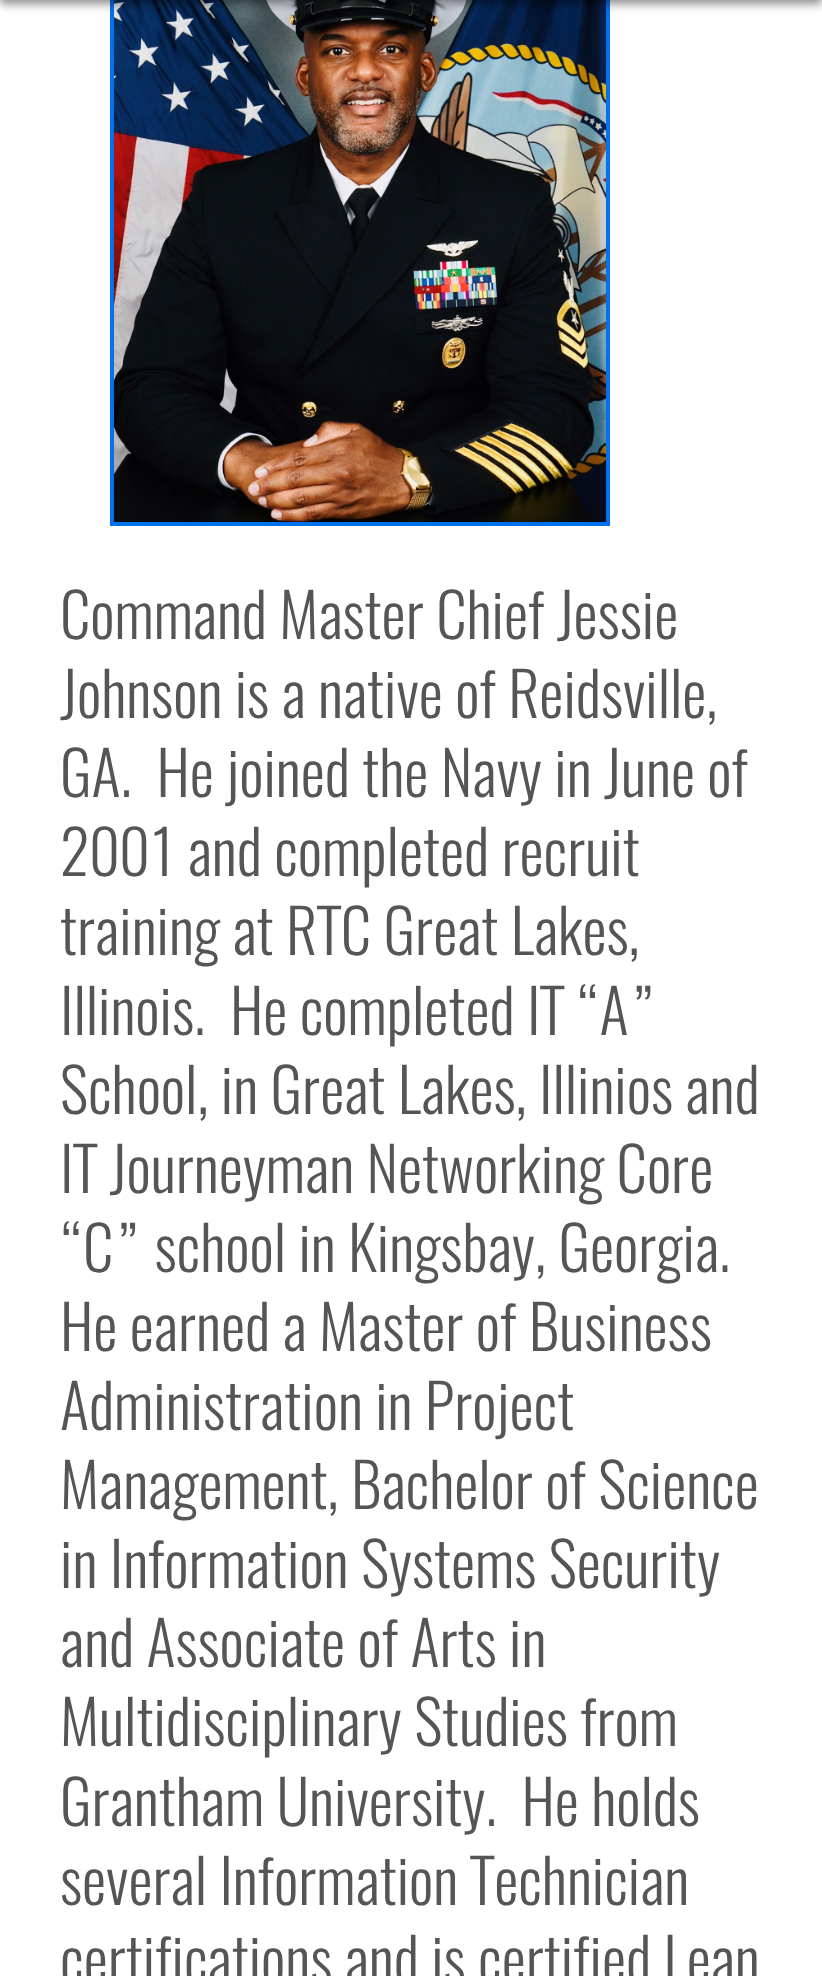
(async () => {
const canvas = document.querySelector("canvas")
canvas.width = 822
canvas.height = 1976
const c = canvas.getContext("2d")
c.miterLimit = 4
c.fontKerning = "normal"
function T(s,x,y){c.fillText(s,x,y)}
function R(x,y,w,h){c.fillRect(x,y,w,h)}
async function I(src,x,y,w,h){const img=new Image();img.src=src;await img.decode();c.drawImage(img,x,y,w,h)}
c.fillStyle="#fff"
R(0,0,822,1976)
c.strokeStyle="#0072ed"
c.lineWidth=4
c.strokeRect(112,-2,496,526)
await I("1.png",114,0,492,522)
c.fillStyle="#00000073"
c.filter="blur(5px)"
c.beginPath()
c.rect(0,-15,822,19)
c.fill()
c.filter="none"
c.font="300 60.8px Oswald"
c.fillStyle="#555"
T("Command Master Chief Jessie",60,639)
T("Johnson is a native of Reidsville,",60,718)
T("GA.  He joined the Navy in June of",60,797)
T("2001 and completed recruit",60,876)
T("training at RTC Great Lakes,",60,955)
T("Illinois.  He completed IT “A”",60,1035)
T("School, in Great Lakes, Illinios and",60,1114)
T("IT Journeyman Networking Core",60,1193)
T("“C” school in Kingsbay, Georgia.",60,1272)
T("He earned a Master of Business",60,1351)
T("Administration in Project",60,1430)
T("Management, Bachelor of Science",60,1509)
T("in Information Systems Security",60,1588)
T("and Associate of Arts in",60,1667)
T("Multidisciplinary Studies from",60,1746)
T("Grantham University.  He holds",60,1826)
T("several Information Technician",60,1905)
T("certifications and is certified Lean",60,1984)
})()
